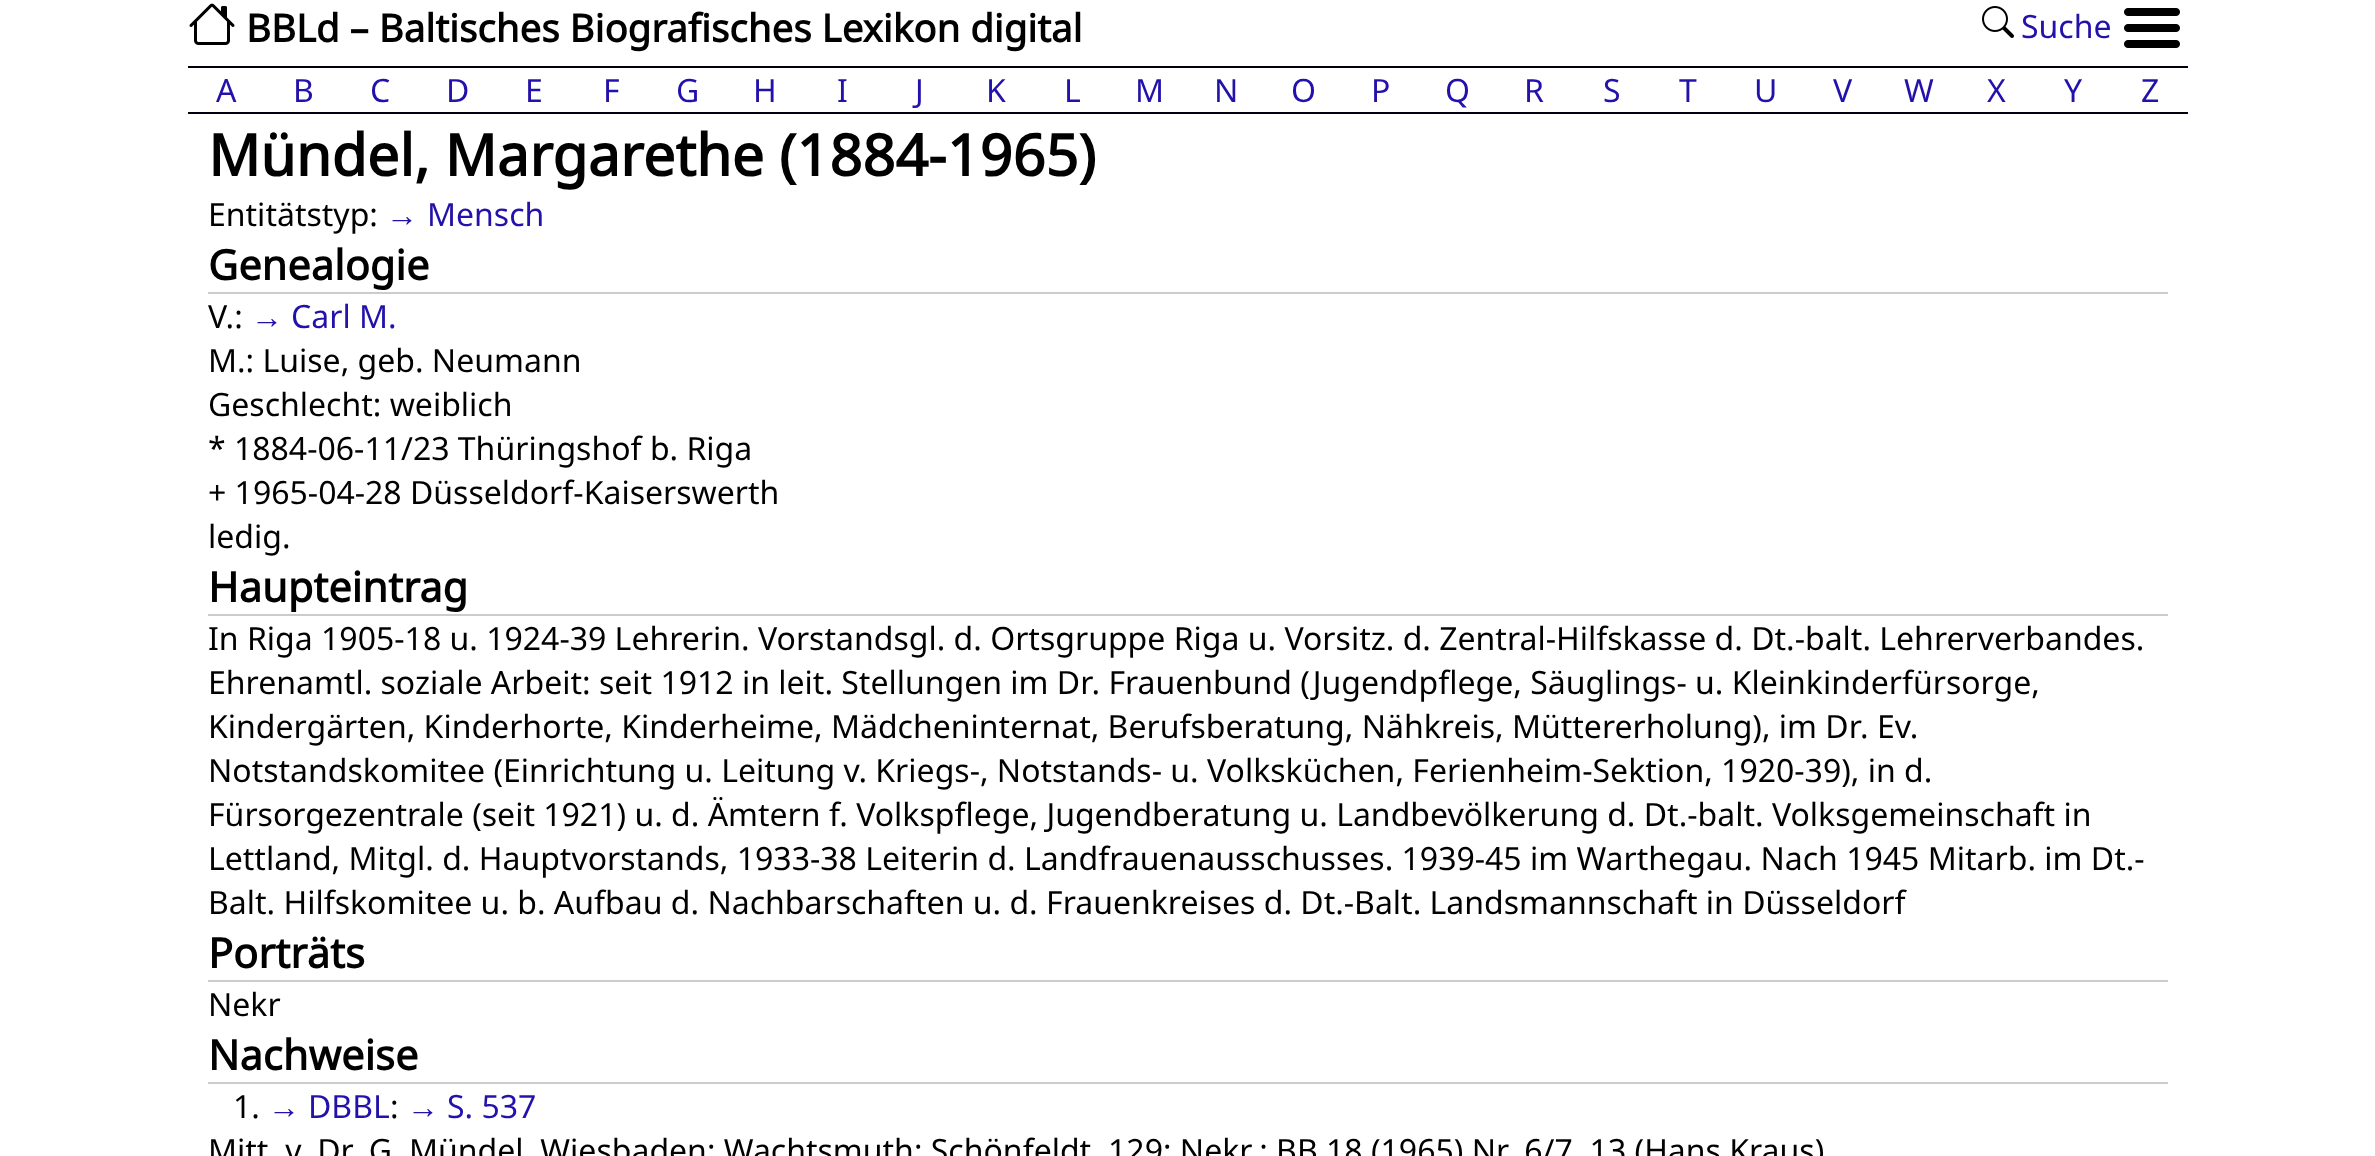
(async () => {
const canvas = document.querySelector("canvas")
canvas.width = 2375
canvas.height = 1156
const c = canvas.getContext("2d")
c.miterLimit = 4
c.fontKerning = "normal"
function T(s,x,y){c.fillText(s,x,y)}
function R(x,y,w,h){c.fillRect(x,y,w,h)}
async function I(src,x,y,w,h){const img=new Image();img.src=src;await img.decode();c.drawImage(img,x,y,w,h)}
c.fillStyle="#fff"
R(0,0,2375,1156)
await I("1.png",189,3,46,42)
c.font="bold 38.4px Noto Sans"
c.fillStyle="#000"
T("BBLd – Baltisches Biografisches Lexikon digital",246,42)
await I("2.png",1982,6,32,32)
c.font="32px Noto Sans"
c.fillStyle="#21a"
T("Suche",2021,38)
await I("3.png",2124,8,56,40)
c.fillStyle="#001"
R(188,66,2000,2)
R(188,112,2000,2)
c.fillStyle="#21a"
T("A",216,102)
T("B",293,102)
T("C",370,102)
T("D",446,102)
T("E",525,102)
T("F",603,102)
T("G",676,102)
T("H",753,102)
T("I",837,102)
T("J",915,102)
T("K",986,102)
T("L",1064,102)
T("M",1135,102)
T("N",1214,102)
T("O",1291,102)
T("P",1371,102)
T("Q",1445,102)
T("R",1524,102)
T("S",1603,102)
T("T",1679,102)
T("U",1754,102)
T("V",1833,102)
T("W",1904,102)
T("X",1987,102)
T("Y",2064,102)
T("Z",2141,102)
c.font="bold 57.6px Noto Sans"
c.fillStyle="#000"
T("Mündel, Margarethe (1884-1965)",208,176)
c.font="32px Noto Sans"
T("Entitätstyp:",208,226)
c.font="32px Liberation Serif"
c.fillStyle="#21a"
T("→",386,226)
c.font="32px Noto Sans"
T("Mensch",427,226)
c.fillStyle="#ccc"
R(208,292,1960,2)
c.font="bold 41.5px Noto Sans"
c.fillStyle="#000"
T("Genealogie",208,280)
c.font="32px Noto Sans"
T("V.:",208,328)
c.font="32px Liberation Serif"
c.fillStyle="#21a"
T("→",251,328)
c.font="32px Noto Sans"
T("Carl M.",291,328)
c.fillStyle="#000"
T("M.: Luise, geb. Neumann",208,372)
T("Geschlecht: weiblich",208,416)
T("* 1884-06-11/23 Thüringshof b. Riga",208,460)
T("+ 1965-04-28 Düsseldorf-Kaiserswerth",208,504)
T("ledig.",208,548)
c.fillStyle="#ccc"
R(208,614,1960,2)
c.font="bold 41.5px Noto Sans"
c.fillStyle="#000"
T("Haupteintrag",208,602)
c.font="32px Noto Sans"
T("In Riga 1905-18 u. 1924-39 Lehrerin. Vorstandsgl. d. Ortsgruppe Riga u. Vorsitz. d. Zentral-Hilfskasse d. Dt.-balt. Lehrerverbandes.",208,650)
T("Ehrenamtl. soziale Arbeit: seit 1912 in leit. Stellungen im Dr. Frauenbund (Jugendpflege, Säuglings- u. Kleinkinderfürsorge,",208,694)
T("Kindergärten, Kinderhorte, Kinderheime, Mädcheninternat, Berufsberatung, Nähkreis, Müttererholung), im Dr. Ev.",208,738)
T("Notstandskomitee (Einrichtung u. Leitung v. Kriegs-, Notstands- u. Volksküchen, Ferienheim-Sektion, 1920-39), in d.",208,782)
T("Fürsorgezentrale (seit 1921) u. d. Ämtern f. Volkspflege, Jugendberatung u. Landbevölkerung d. Dt.-balt. Volksgemeinschaft in",208,826)
T("Lettland, Mitgl. d. Hauptvorstands, 1933-38 Leiterin d. Landfrauenausschusses. 1939-45 im Warthegau. Nach 1945 Mitarb. im Dt.-",208,870)
T("Balt. Hilfskomitee u. b. Aufbau d. Nachbarschaften u. d. Frauenkreises d. Dt.-Balt. Landsmannschaft in Düsseldorf",208,914)
c.fillStyle="#ccc"
R(208,980,1960,2)
c.font="bold 41.5px Noto Sans"
c.fillStyle="#000"
T("Porträts",208,968)
c.font="32px Noto Sans"
T("Nekr",208,1016)
c.fillStyle="#ccc"
R(208,1082,1960,2)
c.font="bold 41.5px Noto Sans"
c.fillStyle="#000"
T("Nachweise",208,1070)
c.font="32px Noto Sans"
T("1.",233,1118)
c.font="32px Liberation Serif"
c.fillStyle="#21a"
T("→",268,1118)
c.font="32px Noto Sans"
T("DBBL",308,1118)
c.fillStyle="#000"
T(":",390,1118)
c.font="32px Liberation Serif"
c.fillStyle="#21a"
T("→",407,1118)
c.font="32px Noto Sans"
T("S. 537",447,1118)
c.fillStyle="#000"
T("Mitt. v. Dr. G. Mündel, Wiesbaden; Wachtsmuth; Schönfeldt, 129; Nekr.: BB 18 (1965) Nr. 6/7, 13 (Hans Kraus)",208,1162)
})()
